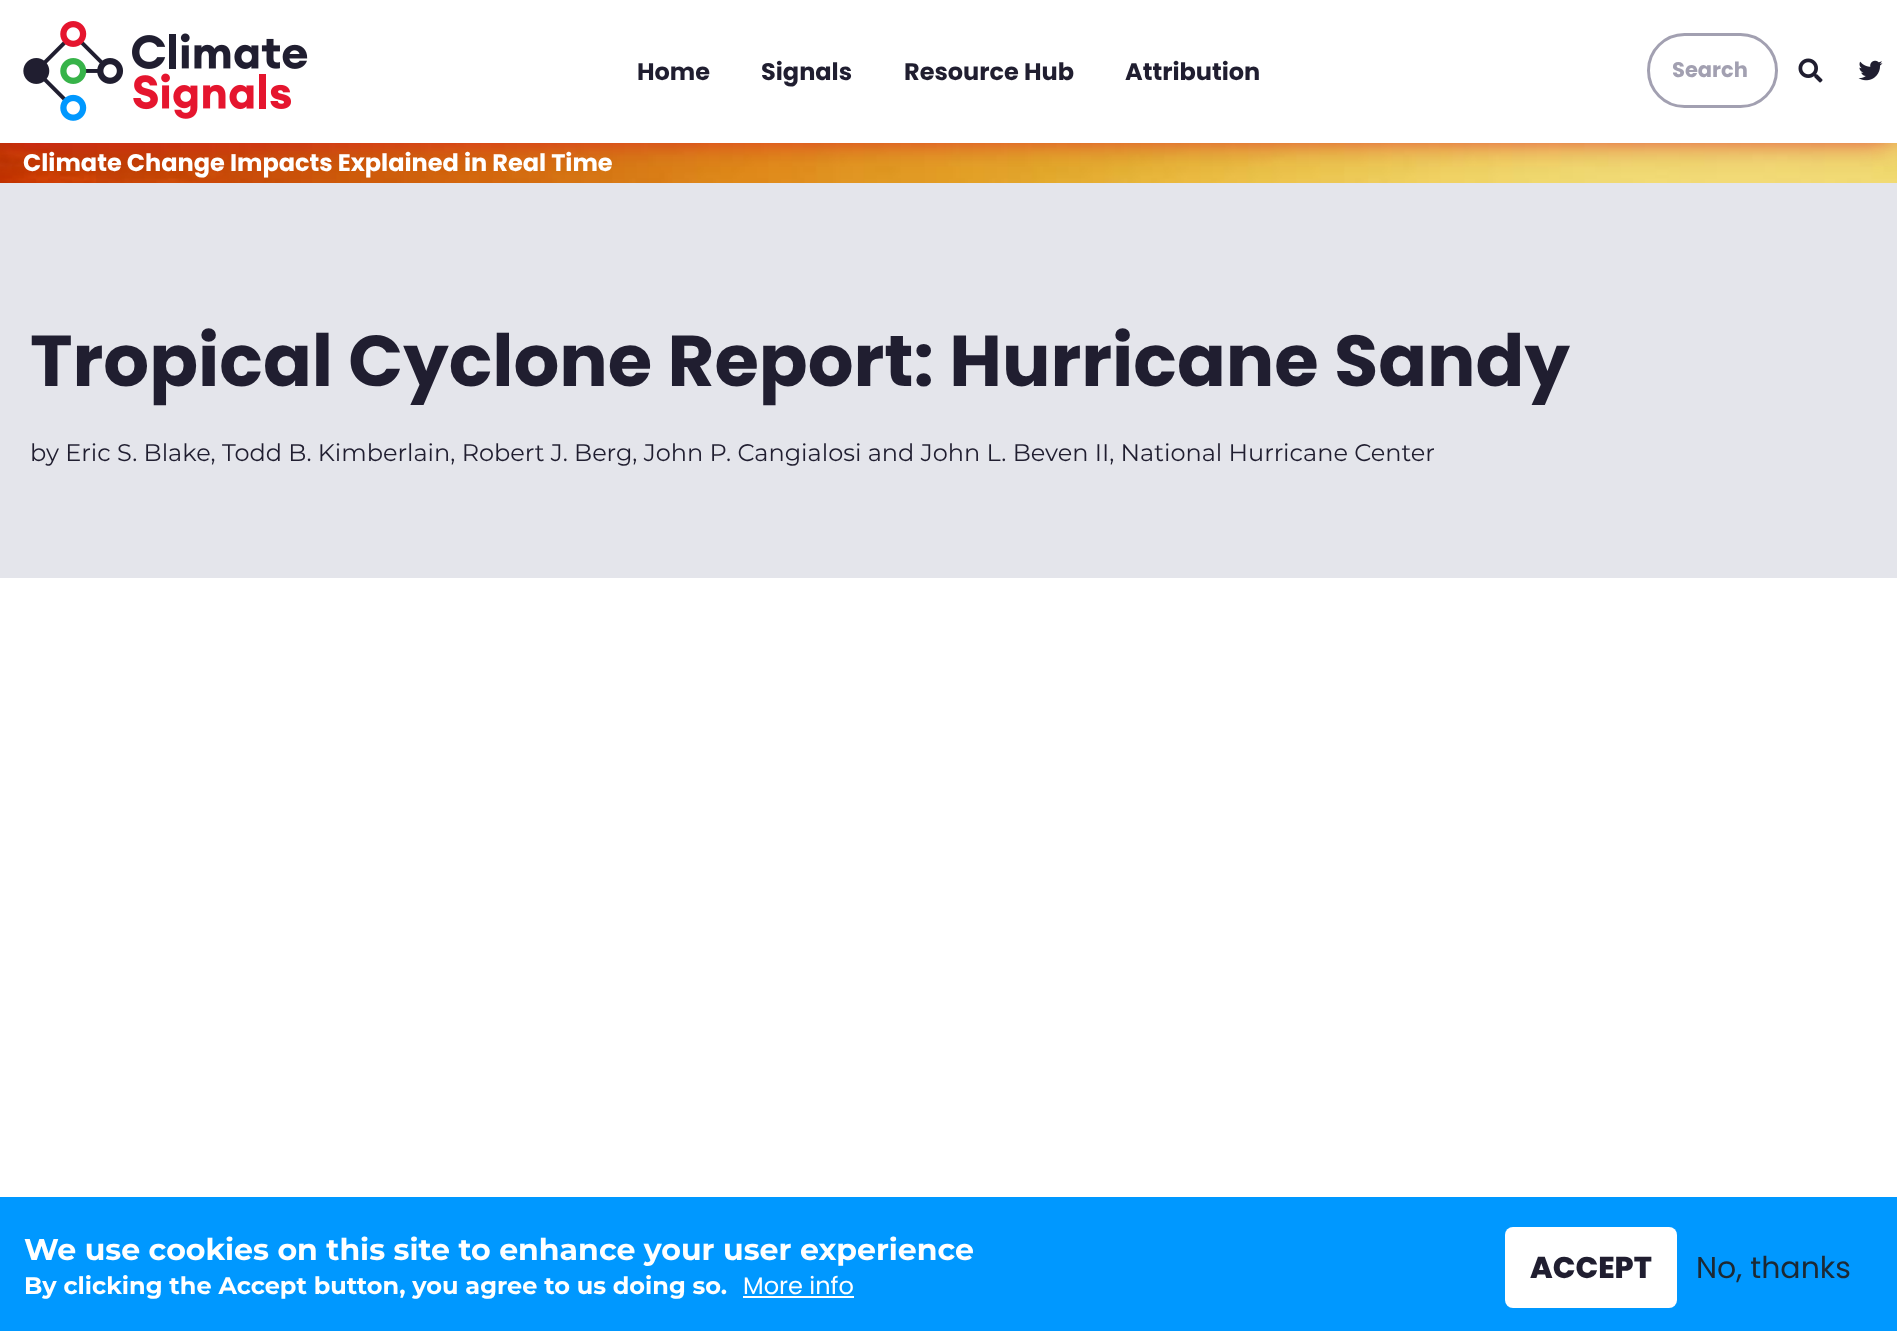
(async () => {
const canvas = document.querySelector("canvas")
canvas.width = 1897
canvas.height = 1331
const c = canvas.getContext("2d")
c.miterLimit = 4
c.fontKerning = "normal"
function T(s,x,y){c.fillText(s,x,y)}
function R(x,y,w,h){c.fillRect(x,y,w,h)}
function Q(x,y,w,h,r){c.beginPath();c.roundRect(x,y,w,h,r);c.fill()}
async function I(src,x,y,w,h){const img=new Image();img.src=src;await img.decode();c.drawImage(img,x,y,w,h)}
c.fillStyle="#fff"
R(0,0,1897,1331)
await I("4.png",0,143,1897,40)
c.fillStyle="#e5152e"
c.filter="blur(15px)"
c.beginPath()
c.rect(6,6,1886,131)
c.fill()
c.filter="none"
c.fillStyle="#fff"
R(0,0,1897,143)
await I("1.png",23,21,285,100)
c.font="bold 24px Poppins"
c.fillStyle="#201e30"
T("Home",637,80)
T("Signals",761,80)
T("Resource Hub",904,80)
T("Attribution",1125,80)
c.beginPath()
c.roundRect(1648.5,34.5,128,72,36)
c.strokeStyle="#a2a0b1"
c.lineWidth=3
c.stroke()
c.save()
c.beginPath()
c.rect(1673,56,79,31)
c.clip()
c.font="bold 21px Poppins"
c.fillStyle="#a2a0b1"
T("Search",1672,77)
c.restore()
await I("2.png",1798,58,25,25)
await I("3.png",1858,60,25,21)
c.fillStyle="#fff"
T("Climate Change Impacts Explained in Real Time",23,171)
c.fillStyle="#e4e5eb"
R(0,183,1897,395)
c.font="bold 72px Poppins"
c.fillStyle="#201e30"
T("Tropical Cyclone Report: Hurricane Sandy",30,386)
c.font="24px Montserrat"
T("by Eric S. Blake, Todd B. Kimberlain, Robert J. Berg, John P. Cangialosi and John L. Beven II, National Hurricane Center",30,461)
c.fillStyle="#0098ff"
R(0,1197,1897,134)
c.font="bold 30px Montserrat"
c.fillStyle="#fff"
T("We use cookies on this site to enhance your user experience",24,1260)
c.font="bold 24px Montserrat"
T("By clicking the Accept button, you agree to us doing so.",24,1294)
c.font="24px Poppins"
T("More info",743,1294)
R(743,1296,111,2)
Q(1505,1227,172,81,8)
c.font="800 30px Poppins"
c.fillStyle="#201e30"
T("ACCEPT",1530,1278)
c.font="30px Poppins"
c.fillStyle="#1d2933"
T("No, thanks",1696,1278)
})()
